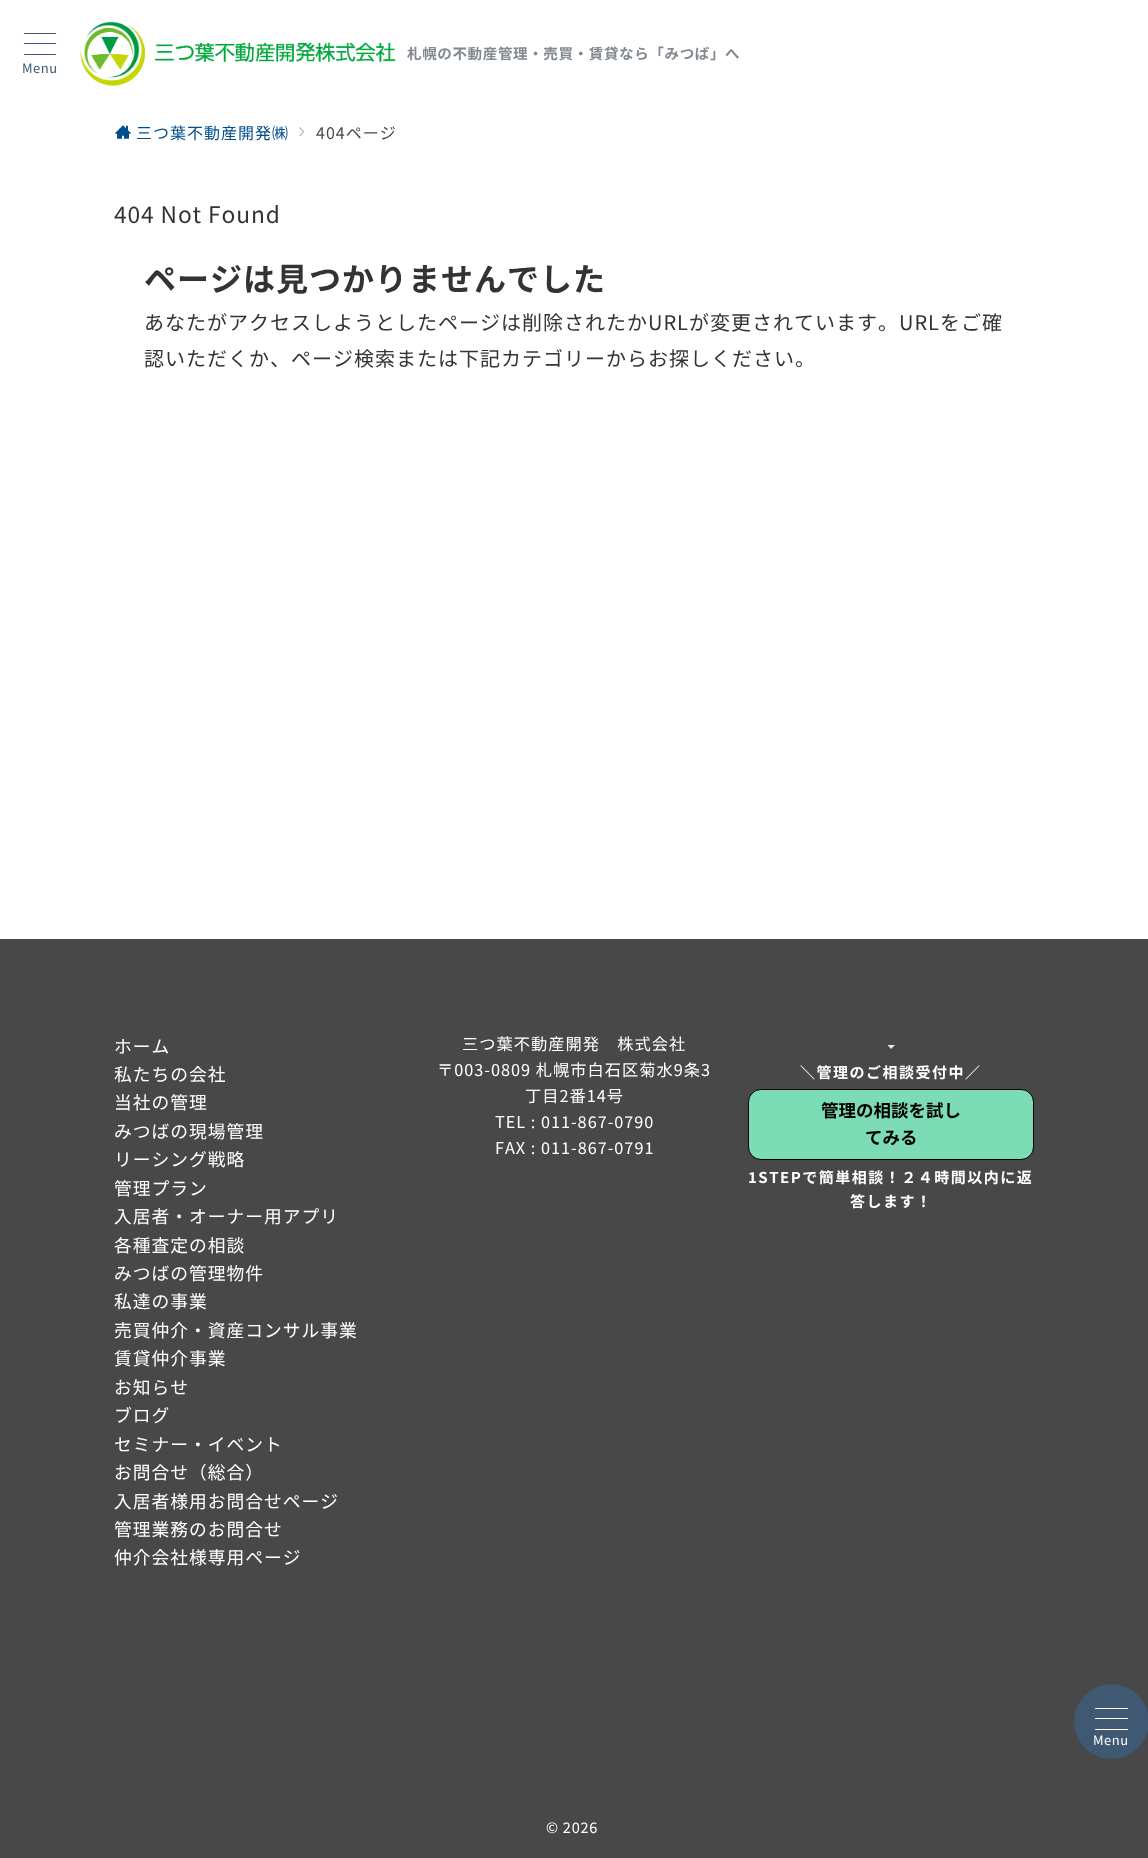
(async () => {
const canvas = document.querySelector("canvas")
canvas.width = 1148
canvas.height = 1858
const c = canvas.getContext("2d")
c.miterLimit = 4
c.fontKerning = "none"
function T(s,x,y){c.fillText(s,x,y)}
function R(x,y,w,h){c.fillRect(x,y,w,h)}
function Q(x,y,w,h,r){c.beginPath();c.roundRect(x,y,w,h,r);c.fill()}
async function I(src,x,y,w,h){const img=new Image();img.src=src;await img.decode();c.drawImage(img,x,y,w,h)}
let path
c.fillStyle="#fff"
R(0,0,1148,1858)
await I("1.png",80,21,316,65)
c.letterSpacing="0.6px"
c.font="bold 14.55px Noto Sans JP"
c.fillStyle="#828990"
T("札幌の不動産管理・売買・賃貸なら「みつば」へ",407,59)
c.fillStyle="#3f5973"
Q(24,33,32,1,.5)
Q(24,43,32,1,.5)
Q(24,54,32,1,.5)
c.letterSpacing="0.5px"
c.font="13px Noto Sans JP"
T("Menu",22,73)
await I("2.png",115,125,16,14)
c.letterSpacing="1px"
c.font="16px Noto Sans JP"
c.fillStyle="#004e8e"
T("三つ葉不動産開発㈱",136,139)
await I("3.png",299,127,6,10)
c.fillStyle="#484848"
T("404ページ",316,139)
c.letterSpacing="0.9px"
c.font="22.75px Noto Sans JP"
c.fillStyle="#333"
T("404 Not Found",114,223)
c.letterSpacing="1px"
c.font="bold 32px Noto Sans JP"
T("ページは見つかりませんでした",144,291)
c.font="20px Noto Sans JP"
T("あなたがアクセスしようとしたページは削除されたかURLが変更されています",144,330)
T("。URLをご確",878,330)
T("認いただくか、ページ検索または下記カテゴリーからお探しください。",144,366)
c.fillStyle="#484848"
R(0,939,1148,919)
c.font="17.75px Noto Sans JP"
c.fillStyle="#fff"
T("ホーム",114,1053)
T("私たちの会社",114,1081)
T("当社の管理",114,1109)
T("みつばの現場管理",114,1138)
T("リーシング戦略",114,1166)
T("管理プラン",114,1195)
T("入居者・オーナー用アプリ",114,1223)
T("各種査定の相談",114,1252)
T("みつばの管理物件",114,1280)
T("私達の事業",114,1308)
T("売買仲介・資産コンサル事業",114,1337)
T("賃貸仲介事業",114,1365)
T("お知らせ",114,1394)
T("ブログ",114,1422)
T("セミナー・イベント",114,1451)
T("お問合せ（総合）",114,1479)
T("入居者様用お問合せページ",114,1508)
T("管理業務のお問合せ",114,1536)
T("仲介会社様専用ページ",114,1564)
c.font="16.25px Noto Sans JP"
T("三つ葉不動産開発　株式会社",462,1050)
T("〒003-0809 札幌市白石区菊水9条3",437,1076)
T("丁目2番14号",525,1102)
T("TEL : 011-867-0790",495,1128)
T("FAX : 011-867-0791",495,1154)
c.fillStyle="#e5e7e8"
path = new Path2D("M887.5 1045h7.5l-4 4z")
c.fill(path)
c.letterSpacing="1.5px"
c.font="bold 15px Noto Sans JP"
c.fillStyle="#fff"
T("＼管理のご相談受付中／",800,1078)
c.fillStyle="#7bdcb5"
c.beginPath()
c.roundRect(748.5,1089.5,285,70,12.5)
c.fill()
c.strokeStyle="#000"
c.stroke()
c.letterSpacing="0px"
c.font="bold 17.5px Noto Sans JP"
c.fillStyle="#000"
T("管理の相談を試し",821,1117)
T("てみる",865,1144)
c.letterSpacing="1.5px"
c.font="bold 15px Noto Sans JP"
c.fillStyle="#fff"
T("1STEPで簡単相談！２４時間以内に返",748,1183)
T("答します！",850,1207)
c.letterSpacing="0.75px"
c.font="14.55px Noto Sans JP"
T("© 2026",546,1833)
c.fillStyle="#3f5973"
c.beginPath()
c.arc(1111.5,1721.5,37.5,0,7)
c.fill()
c.fillStyle="#fff"
Q(1095,1708,33,1,.5)
Q(1095,1718,33,1,.5)
Q(1095,1729,33,1,.5)
c.letterSpacing="0.5px"
c.font="13px Noto Sans JP"
T("Menu",1093,1745)
})()
